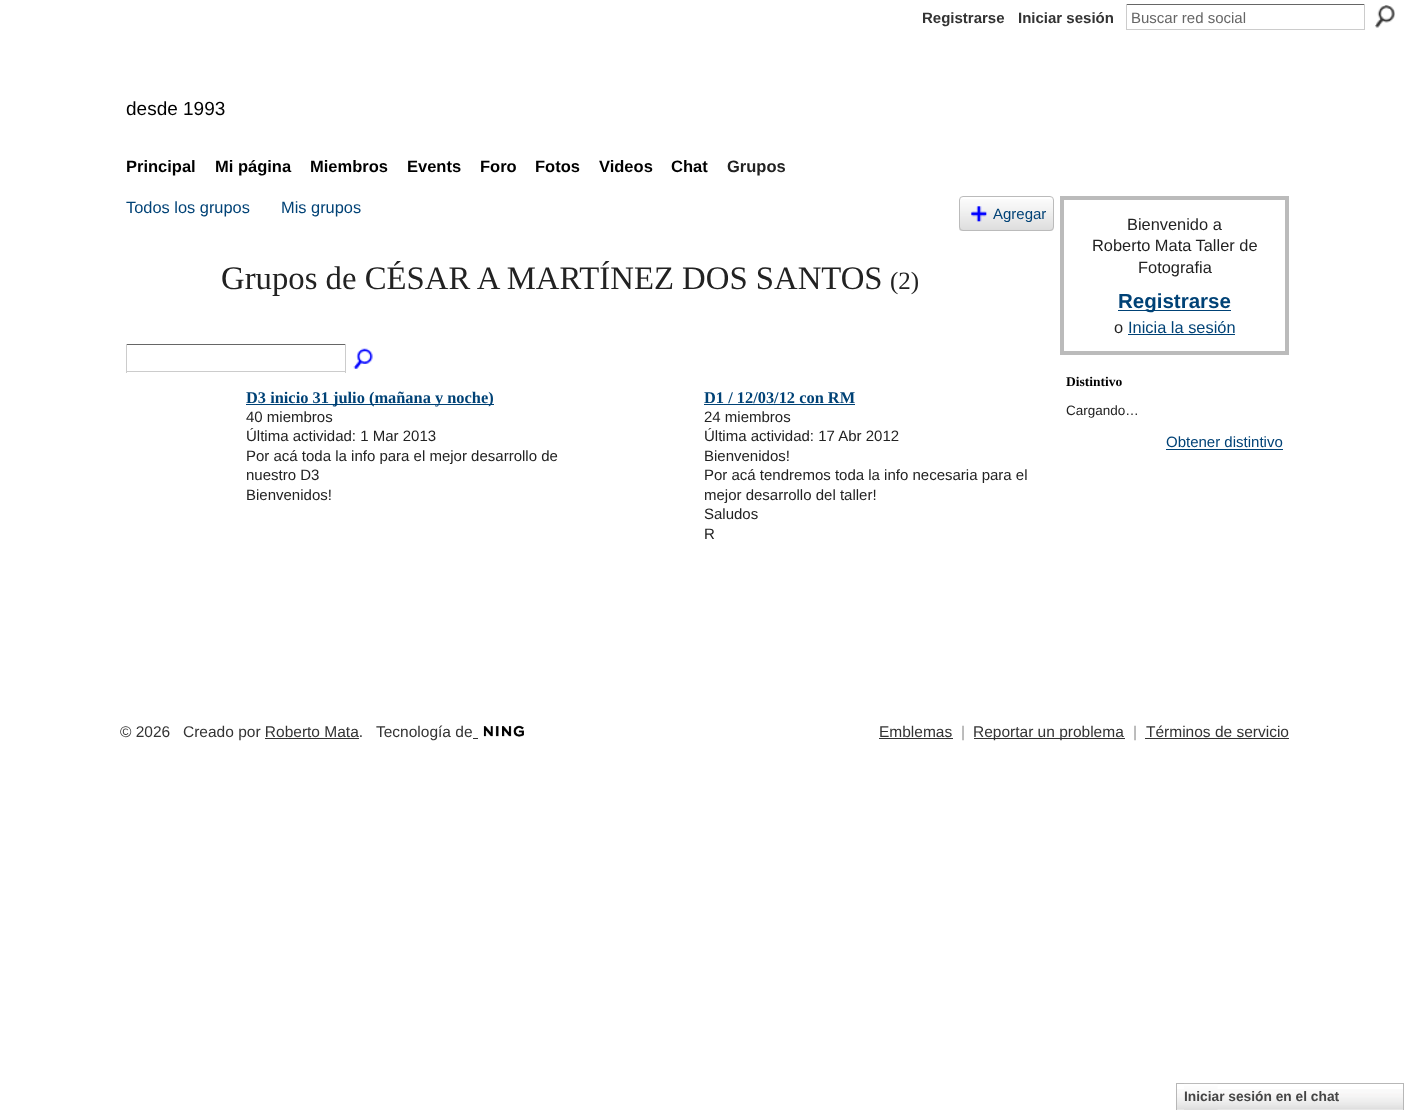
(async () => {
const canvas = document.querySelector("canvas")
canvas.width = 1408
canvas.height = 1110
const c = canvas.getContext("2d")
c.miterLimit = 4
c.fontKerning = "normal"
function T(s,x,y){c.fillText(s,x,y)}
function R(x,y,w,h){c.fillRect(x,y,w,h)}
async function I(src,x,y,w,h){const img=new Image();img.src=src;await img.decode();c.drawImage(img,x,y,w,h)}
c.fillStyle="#fff"
R(0,0,1408,1110)
c.font="bold 15px Liberation Sans"
c.fillStyle="#333"
T("Registrarse",922,23)
T("Iniciar sesión",1018,23)
c.fillStyle="#666"
R(1126,4,239,1)
c.fillStyle="#ccc"
R(1364,4,1,26)
R(1126,29,239,1)
R(1126,4,1,26)
c.font="15px Liberation Sans"
c.fillStyle="#666"
T("Buscar red social",1131,23)
await I("1.png",1375,5,20,23)
c.font="19px Liberation Sans"
c.fillStyle="#000"
T("desde 1993",126,115)
c.font="bold 16.5px Liberation Sans"
T("Principal",126,172)
T("Mi página",215,172)
T("Miembros",310,172)
T("Events",407,172)
T("Foro",480,172)
T("Fotos",535,172)
T("Videos",599,172)
T("Chat",671,172)
c.fillStyle="#222"
T("Grupos",727,172)
c.font="16.4px Liberation Sans"
c.fillStyle="#004276"
T("Todos los grupos",126,213)
T("Mis grupos",281,213)
await I("2.png",959,199,95,32)
c.beginPath()
c.roundRect(959.5,196.5,94,34,3.5)
c.strokeStyle="#bbb"
c.stroke()
await I("3.png",971,206,16,16)
c.font="15px Liberation Sans"
T("Agregar",993,219)
c.font="32.75px Liberation Serif"
c.fillStyle="#222"
T("Grupos de CÉSAR A MARTÍNEZ DOS SANTOS",221,289)
c.font="25px Liberation Serif"
T("(2)",890,289)
c.fillStyle="#666"
R(126,344,220,1)
c.fillStyle="#ccc"
R(345,344,1,29)
R(126,371,220,1)
R(126,344,1,29)
await I("4.png",353,348,20,21)
c.fillStyle="#004276"
R(246,404,248,1)
c.font="bold 16.4px Liberation Serif"
T("D3 inicio 31 julio (mañana y noche)",246,403)
c.font="15px Liberation Sans"
c.fillStyle="#222"
T("40 miembros",246,422)
T("Última actividad: 1 Mar 2013",246,441)
T("Por acá toda la info para el mejor desarrollo de",246,461)
T("nuestro D3",246,480)
T("Bienvenidos!",246,500)
c.font="bold 16.4px Liberation Serif"
c.fillStyle="#004276"
T("D1 / 12/03/12 con RM",704,403)
R(704,404,151,1)
c.font="15px Liberation Sans"
c.fillStyle="#222"
T("24 miembros",704,422)
T("Última actividad: 17 Abr 2012",704,441)
T("Bienvenidos!",704,461)
T("Por acá tendremos toda la info necesaria para el",704,480)
T("mejor desarrollo del taller!",704,500)
T("Saludos",704,519)
T("R",704,539)
c.lineWidth=4
c.strokeRect(1062,198,225,155)
c.font="16.4px Liberation Sans"
T("Bienvenido a",1127,230)
T("Roberto Mata Taller de",1092,251)
T("Fotografia",1138,273)
c.fillStyle="#004276"
R(1118,310,113,1)
c.font="bold 20.5px Liberation Sans"
T("Registrarse",1118,308)
c.font="16.4px Liberation Sans"
c.fillStyle="#222"
T("o",1114,333)
c.fillStyle="#004276"
T("Inicia la sesión",1128,333)
R(1128,334,107,1)
c.font="bold 13.5px Liberation Serif"
c.fillStyle="#000"
T("Distintivo",1066,386)
c.font="13.5px Liberation Sans"
c.fillStyle="#222"
T("Cargando…",1066,415)
c.font="15px Liberation Sans"
c.fillStyle="#004276"
T("Obtener distintivo",1166,447)
R(1166,449,117,1)
c.font="15.5px Liberation Sans"
c.fillStyle="#333"
T("© 2026",120,737)
T("Creado por Roberto Mata.",183,737)
T("Tecnología de",376,737)
await I("5.png",483,725,41,12)
R(265,738,94,1)
R(473,738,5,1)
T("Emblemas",879,737)
R(879,738,74,1)
c.fillStyle="#999"
T("|",961,737)
c.fillStyle="#333"
R(974,738,151,1)
T("Reportar un problema",973,737)
c.fillStyle="#999"
T("|",1133,737)
c.fillStyle="#333"
T("Términos de servicio",1146,737)
R(1145,738,144,1)
await I("6.png",1177,1089,226,21)
c.strokeStyle="#b7b7b7"
c.lineWidth=1
c.strokeRect(1176.5,1083.5,227,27)
await I("7.png",1184,1083,34,27)
c.font="bold 13.75px Liberation Sans"
c.fillStyle="#454545"
T("Iniciar sesión en el chat",1184,1101)
})()
